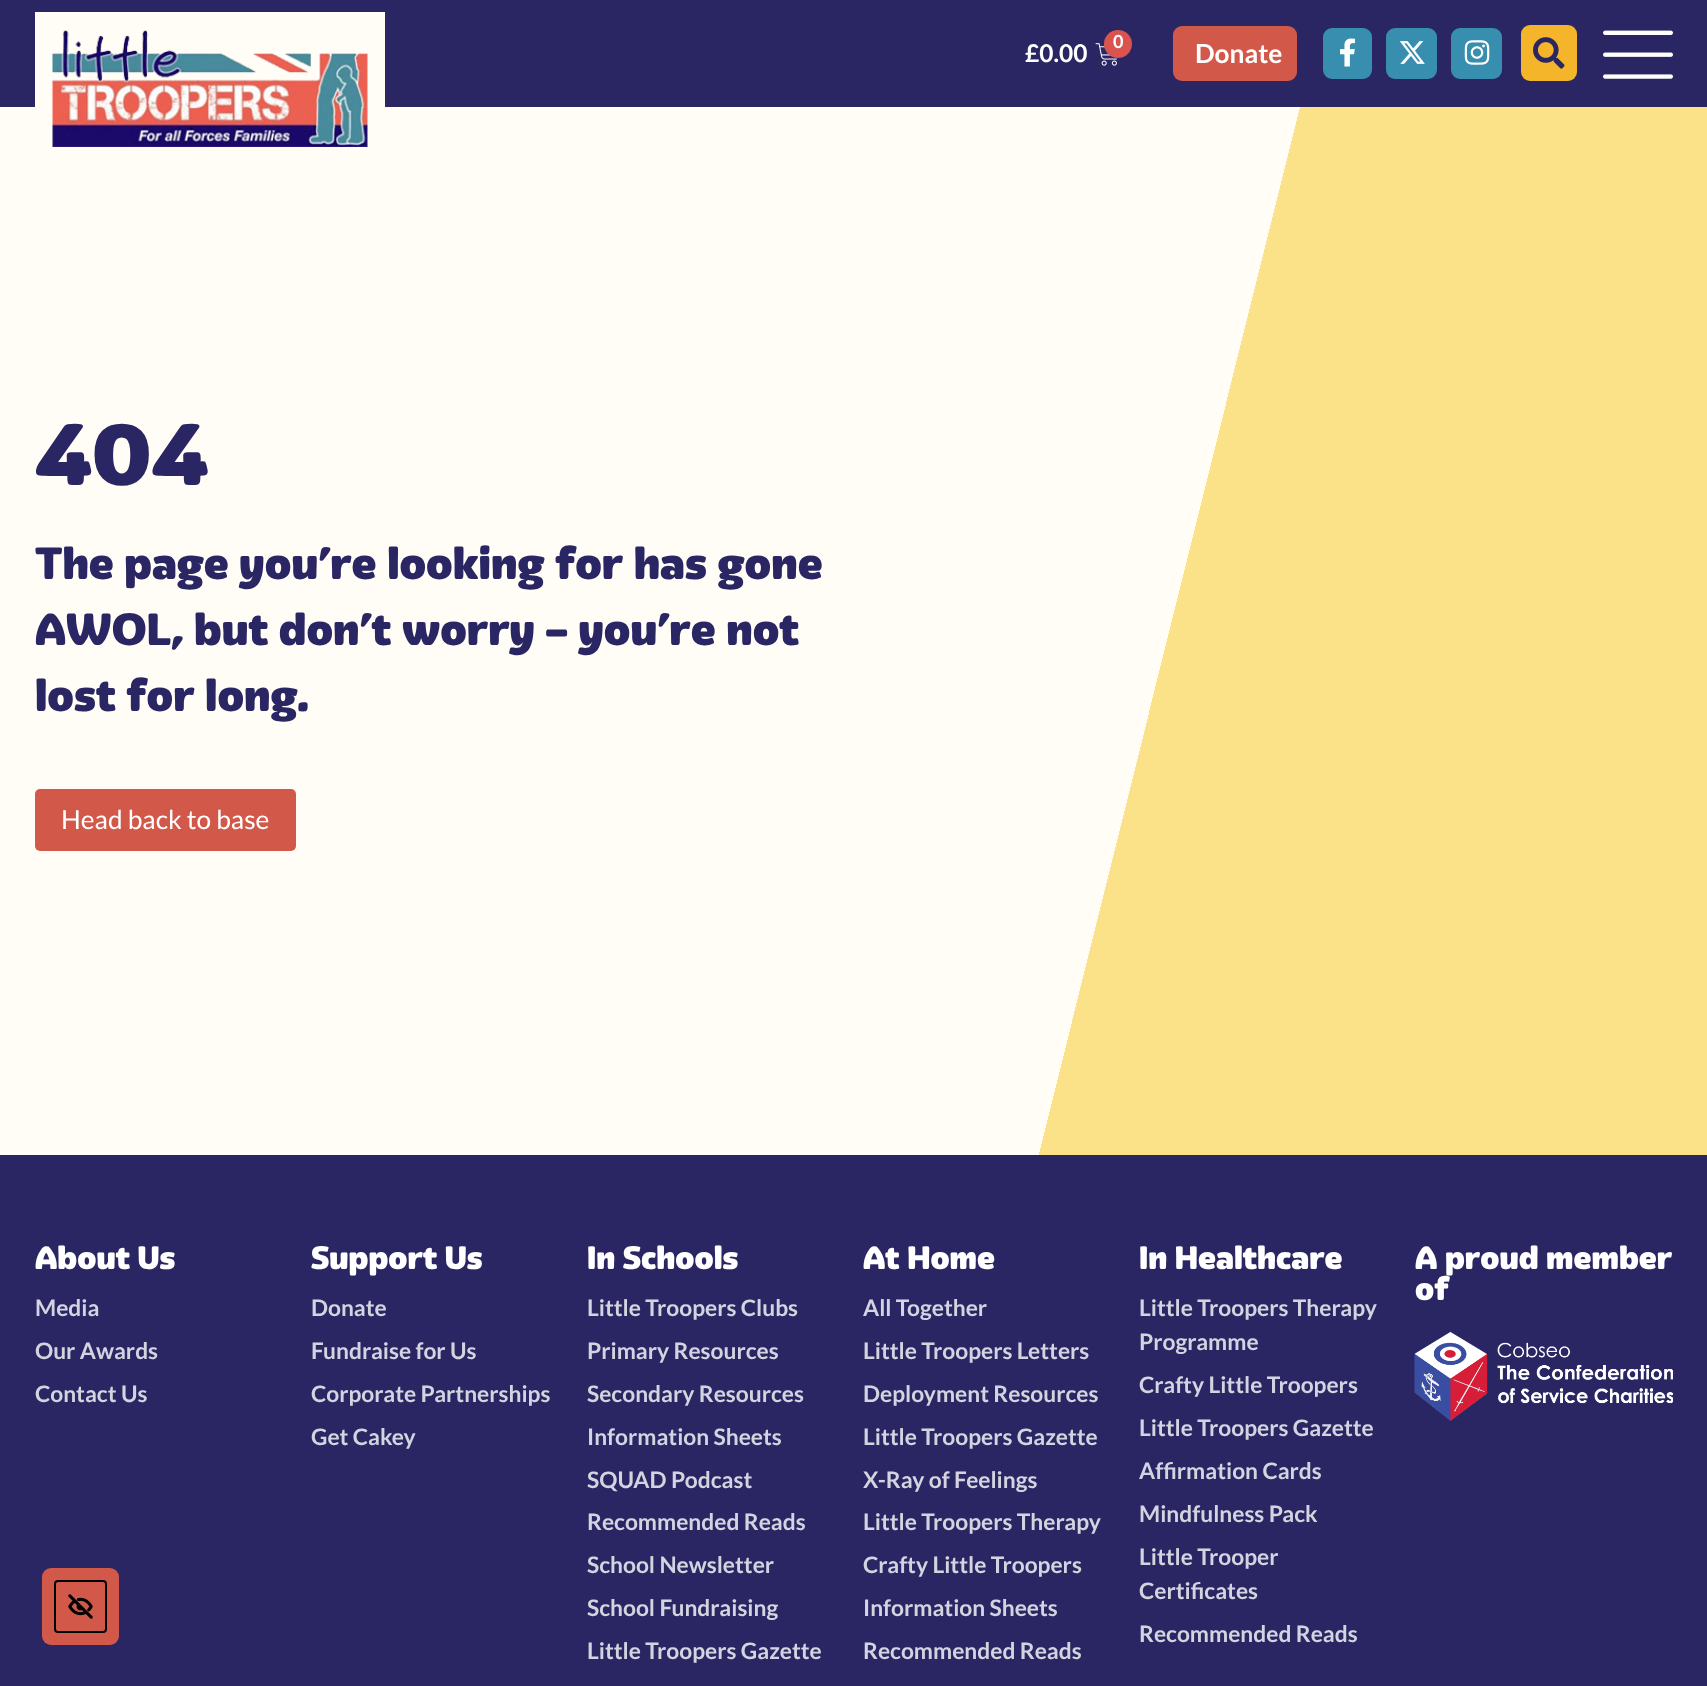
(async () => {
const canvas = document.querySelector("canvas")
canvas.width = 1707
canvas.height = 1686
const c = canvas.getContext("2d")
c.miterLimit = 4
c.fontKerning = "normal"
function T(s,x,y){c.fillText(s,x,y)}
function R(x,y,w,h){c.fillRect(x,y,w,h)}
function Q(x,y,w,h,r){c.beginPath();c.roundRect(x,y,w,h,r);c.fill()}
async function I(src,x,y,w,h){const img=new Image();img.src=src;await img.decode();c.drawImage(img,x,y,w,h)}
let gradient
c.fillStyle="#fff"
R(0,0,1707,1686)
c.fillStyle="#292663"
R(0,0,1707,107)
c.fillStyle="#fffdf5"
R(35,12,350,95)
gradient = c.createLinearGradient(-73,401,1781,863)
gradient.addColorStop(.66,"#fffdf5")
gradient.addColorStop(.66,"#fbe289")
c.fillStyle = gradient
R(0,107,1707,1048)
await I("1.png",52,30,316,117)
await I("2.png",1095,43,22,23)
c.fillStyle="#d9534f"
c.beginPath()
c.arc(1118,44,14,0,7)
c.fill()
c.font="bold 18px Lato"
c.fillStyle="#fff"
T("0",1113,48)
c.font="bold 24.5px Lato"
T("£0.00",1025,62)
c.fillStyle="#d2594a"
Q(1173,26,124,55,9)
c.font="bold 26.25px Lato"
c.fillStyle="#fff"
T("Donate",1195,63)
c.fillStyle="#378eae"
Q(1323,28,49,51,9)
await I("3.png",1340,38,15,29)
Q(1386,28,51,51,9)
await I("4.png",1399,41,26,23)
Q(1451,28,51,51,9)
await I("5.png",1464,40,26,25)
c.fillStyle="#f4b52b"
Q(1521,25,56,56,9)
await I("6.png",1533,37,32,32)
await I("7.png",1603,30,70,49)
c.font="900 84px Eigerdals"
c.fillStyle="#292663"
T("404",35,485)
c.font="900 43.75px Eigerdals"
T("The page you’re looking for has gone",35,579)
T("AWOL, but don’t worry – you’re not",35,645)
T("lost for long.",35,711)
c.fillStyle="#d2594a"
Q(35,789,261,62,5)
c.font="26.25px Lato"
c.fillStyle="#fff"
T("Head back to base",61,829)
c.fillStyle="#292663"
R(0,1155,1707,531)
c.font="900 31.5px Eigerdals"
c.fillStyle="#fff"
T("About Us",35,1269)
c.font="bold 22.75px Lato"
c.fillStyle="#d4d4e0"
T("Media",35,1316)
T("Our Awards",35,1359)
T("Contact Us",35,1402)
c.font="900 31.5px Eigerdals"
c.fillStyle="#fff"
T("Support Us",311,1269)
c.font="bold 22.75px Lato"
c.fillStyle="#d4d4e0"
T("Donate",311,1316)
T("Fundraise for Us",311,1359)
T("Corporate Partnerships",311,1402)
T("Get Cakey",311,1445)
c.font="900 31.5px Eigerdals"
c.fillStyle="#fff"
T("In Schools",587,1269)
c.font="bold 22.75px Lato"
c.fillStyle="#d4d4e0"
T("Little Troopers Clubs",587,1316)
T("Primary Resources",587,1359)
T("Secondary Resources",587,1402)
T("Information Sheets",587,1445)
T("SQUAD Podcast",587,1488)
T("Recommended Reads",587,1530)
T("School Newsletter",587,1573)
T("School Fundraising",587,1616)
T("Little Troopers Gazette",587,1659)
c.font="900 31.5px Eigerdals"
c.fillStyle="#fff"
T("At Home",863,1269)
c.font="bold 22.75px Lato"
c.fillStyle="#d4d4e0"
T("All Together",863,1316)
T("Little Troopers Letters",863,1359)
T("Deployment Resources",863,1402)
T("Little Troopers Gazette",863,1445)
T("X-Ray of Feelings",863,1488)
T("Little Troopers Therapy",863,1530)
T("Crafty Little Troopers",863,1573)
T("Information Sheets",863,1616)
T("Recommended Reads",863,1659)
c.font="900 31.5px Eigerdals"
c.fillStyle="#fff"
T("In Healthcare",1139,1269)
c.font="bold 22.75px Lato"
c.fillStyle="#d4d4e0"
T("Little Troopers Therapy",1139,1316)
T("Programme",1139,1350)
T("Crafty Little Troopers",1139,1393)
T("Little Troopers Gazette",1139,1436)
T("Affirmation Cards",1139,1479)
T("Mindfulness Pack",1139,1522)
T("Little Trooper",1139,1565)
T("Certificates",1139,1599)
T("Recommended Reads",1139,1642)
c.font="900 31.5px Eigerdals"
c.fillStyle="#fff"
T("A proud member",1415,1269)
T("of",1415,1300)
await I("8.png",1414,1331,259,90)
c.fillStyle="#d2594a"
Q(42,1568,77,77,9)
c.beginPath()
c.roundRect(55,1581,51,51,3)
c.strokeStyle="#000"
c.lineWidth=2
c.stroke()
await I("9.png",68,1594,25,25)
})()
